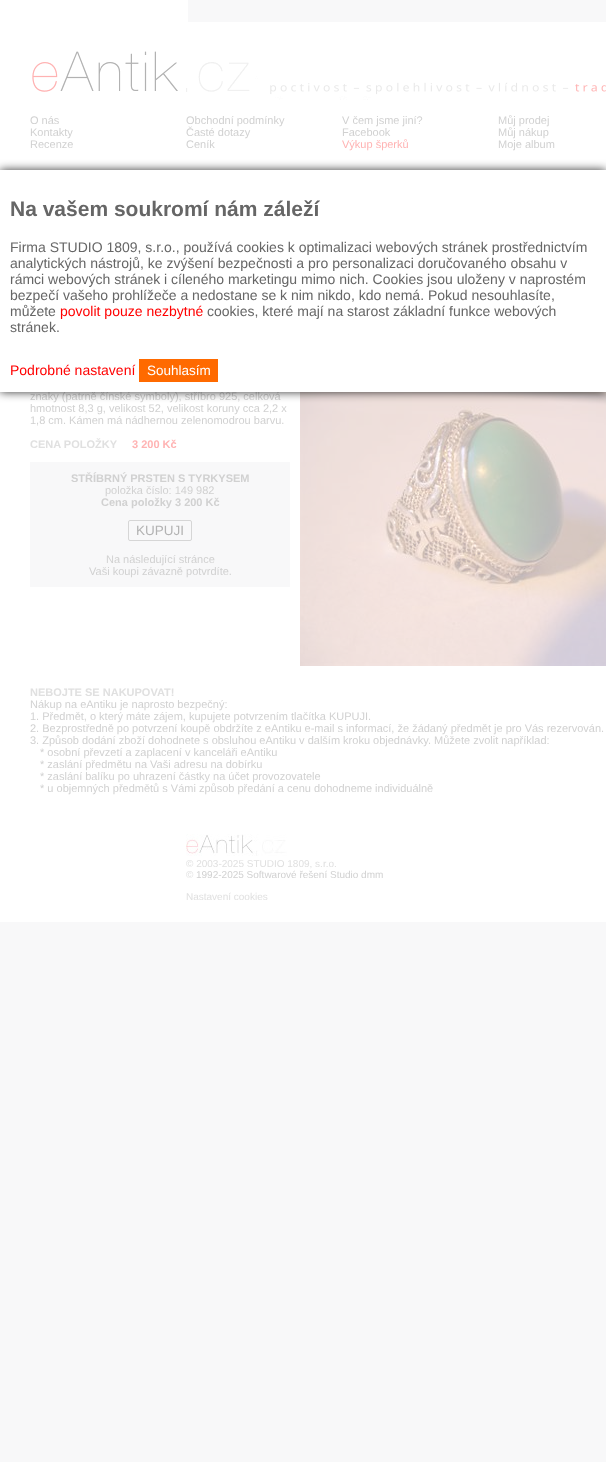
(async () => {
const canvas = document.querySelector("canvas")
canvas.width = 606
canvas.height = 1462
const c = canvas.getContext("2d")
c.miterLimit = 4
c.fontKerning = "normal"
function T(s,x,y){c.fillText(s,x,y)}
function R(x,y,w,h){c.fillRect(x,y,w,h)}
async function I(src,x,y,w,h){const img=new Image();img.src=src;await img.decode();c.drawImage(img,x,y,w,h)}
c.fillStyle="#f8f8f9"
R(0,0,606,1462)
c.fillStyle="#fff"
R(0,0,606,922)
c.fillStyle="#f8f8f9"
R(188,0,418,22)
await I("1.png",32,51,574,49)
c.font="11px Liberation Sans"
c.fillStyle="#d1d1d1"
T("O nás",30,124)
T("Kontakty",30,136)
T("Recenze",30,148)
T("Obchodní podmínky",186,124)
T("Časté dotazy",186,136)
T("Ceník",186,148)
T("V čem jsme jiní?",342,124)
T("Facebook",342,136)
c.fillStyle="#ffb3b3"
T("Výkup šperků",342,148)
c.fillStyle="#d1d1d1"
T("Můj prodej",498,124)
T("Můj nákup",498,136)
T("Moje album",498,148)
T("znaky (patrně čínské symboly), stříbro 925, celková",30,400)
T("hmotnost 8,3 g, velikost 52, velikost koruny cca 2,2 x",30,412)
T("1,8 cm. Kámen má nádhernou zelenomodrou barvu.",30,424)
c.font="bold 11px Liberation Sans"
c.fillStyle="#e0e0e0"
T("CENA POLOŽKY",30,448)
c.fillStyle="#ffb3b3"
T("3 200 Kč",132,448)
c.fillStyle="#f8f8f9"
R(30,462,260,125)
c.fillStyle="#d1d1d1"
T("STŘÍBRNÝ PRSTEN S TYRKYSEM",71,482)
c.font="11px Liberation Sans"
T("položka číslo: 149 982",105,494)
c.font="bold 11px Liberation Sans"
T("Cena položky 3 200 Kč",101,506)
c.beginPath()
c.roundRect(128.5,520.5,63,20,1.5)
c.strokeStyle="#d6d6d6"
c.stroke()
c.font="13.5px Liberation Sans"
c.fillStyle="#b3b3b3"
T("KUPUJI",136,535)
c.font="11px Liberation Sans"
c.fillStyle="#d1d1d1"
T("Na následující stránce",106,563)
T("Vaši koupi závazně potvrdíte.",89,575)
await I("2.png",300,392,306,274)
c.font="bold 11px Liberation Sans"
c.fillStyle="#e0e0e0"
T("NEBOJTE SE NAKUPOVAT!",30,696)
c.font="11px Liberation Sans"
c.fillStyle="#d1d1d1"
T("Nákup na eAntiku je naprosto bezpečný:",30,708)
T("1. Předmět, o který máte zájem, kupujete potvrzením tlačítka KUPUJI.",30,720)
T("2. Bezprostředně po potvrzení koupě obdržíte z eAntiku e-mail s informací, že žádaný předmět je pro Vás rezervován.",30,732)
T("3. Způsob dodání zboží dohodnete s obsluhou eAntiku v dalším kroku objednávky. Můžete zvolit například:",30,744)
T("* osobní převzetí a zaplacení v kanceláři eAntiku",40,756)
T("* zaslání předmětu na Vaši adresu na dobírku",40,768)
T("* zaslání balíku po uhrazení částky na účet provozovatele",40,780)
T("* u objemných předmětů s Vámi způsob předání a cenu dohodneme individuálně",40,792)
await I("3.png",186,834,101,22)
c.font="10px Liberation Sans"
c.fillStyle="#e0e0e0"
T("© 2003-2025 STUDIO 1809, s.r.o.",186,867)
T("©",186,878)
c.fillStyle="#d1d1d1"
T("1992-2025 Softwarové řešení Studio dmm",196,878)
c.fillStyle="#e0e0e0"
T("Nastavení cookies",186,900)
c.fillStyle="#000000cc"
c.filter="blur(5px)"
c.beginPath()
c.rect(0,170,606,222)
c.fill()
c.filter="none"
c.fillStyle="#fff"
R(0,170,606,222)
c.font="bold 21px Liberation Sans"
c.fillStyle="#666"
T("Na vašem soukromí nám záleží",10,216)
c.font="14px Liberation Sans"
T("Firma STUDIO 1809, s.r.o., používá cookies k optimalizaci webových stránek prostřednictvím",10,252)
T("analytických nástrojů, ke zvýšení bezpečnosti a pro personalizaci doručovaného obsahu v",10,268)
T("rámci webových stránek i cíleného marketingu mimo nich. Cookies jsou uloženy v naprostém",10,284)
T("bezpečí vašeho prohlížeče a nedostane se k nim nikdo, kdo nemá. Pokud nesouhlasíte,",10,300)
T("můžete",10,316)
c.fillStyle="#f00"
T("povolit pouze nezbytné",60,316)
c.fillStyle="#666"
T("cookies, které mají na starost základní funkce webových",207,316)
T("stránek.",10,332)
c.fillStyle="#f00"
T("Podrobné nastavení",10,375)
c.fillStyle="#ff6a00"
R(139,359,79,23)
c.font="13.5px Liberation Sans"
c.fillStyle="#fff"
T("Souhlasím",147,375)
})()
